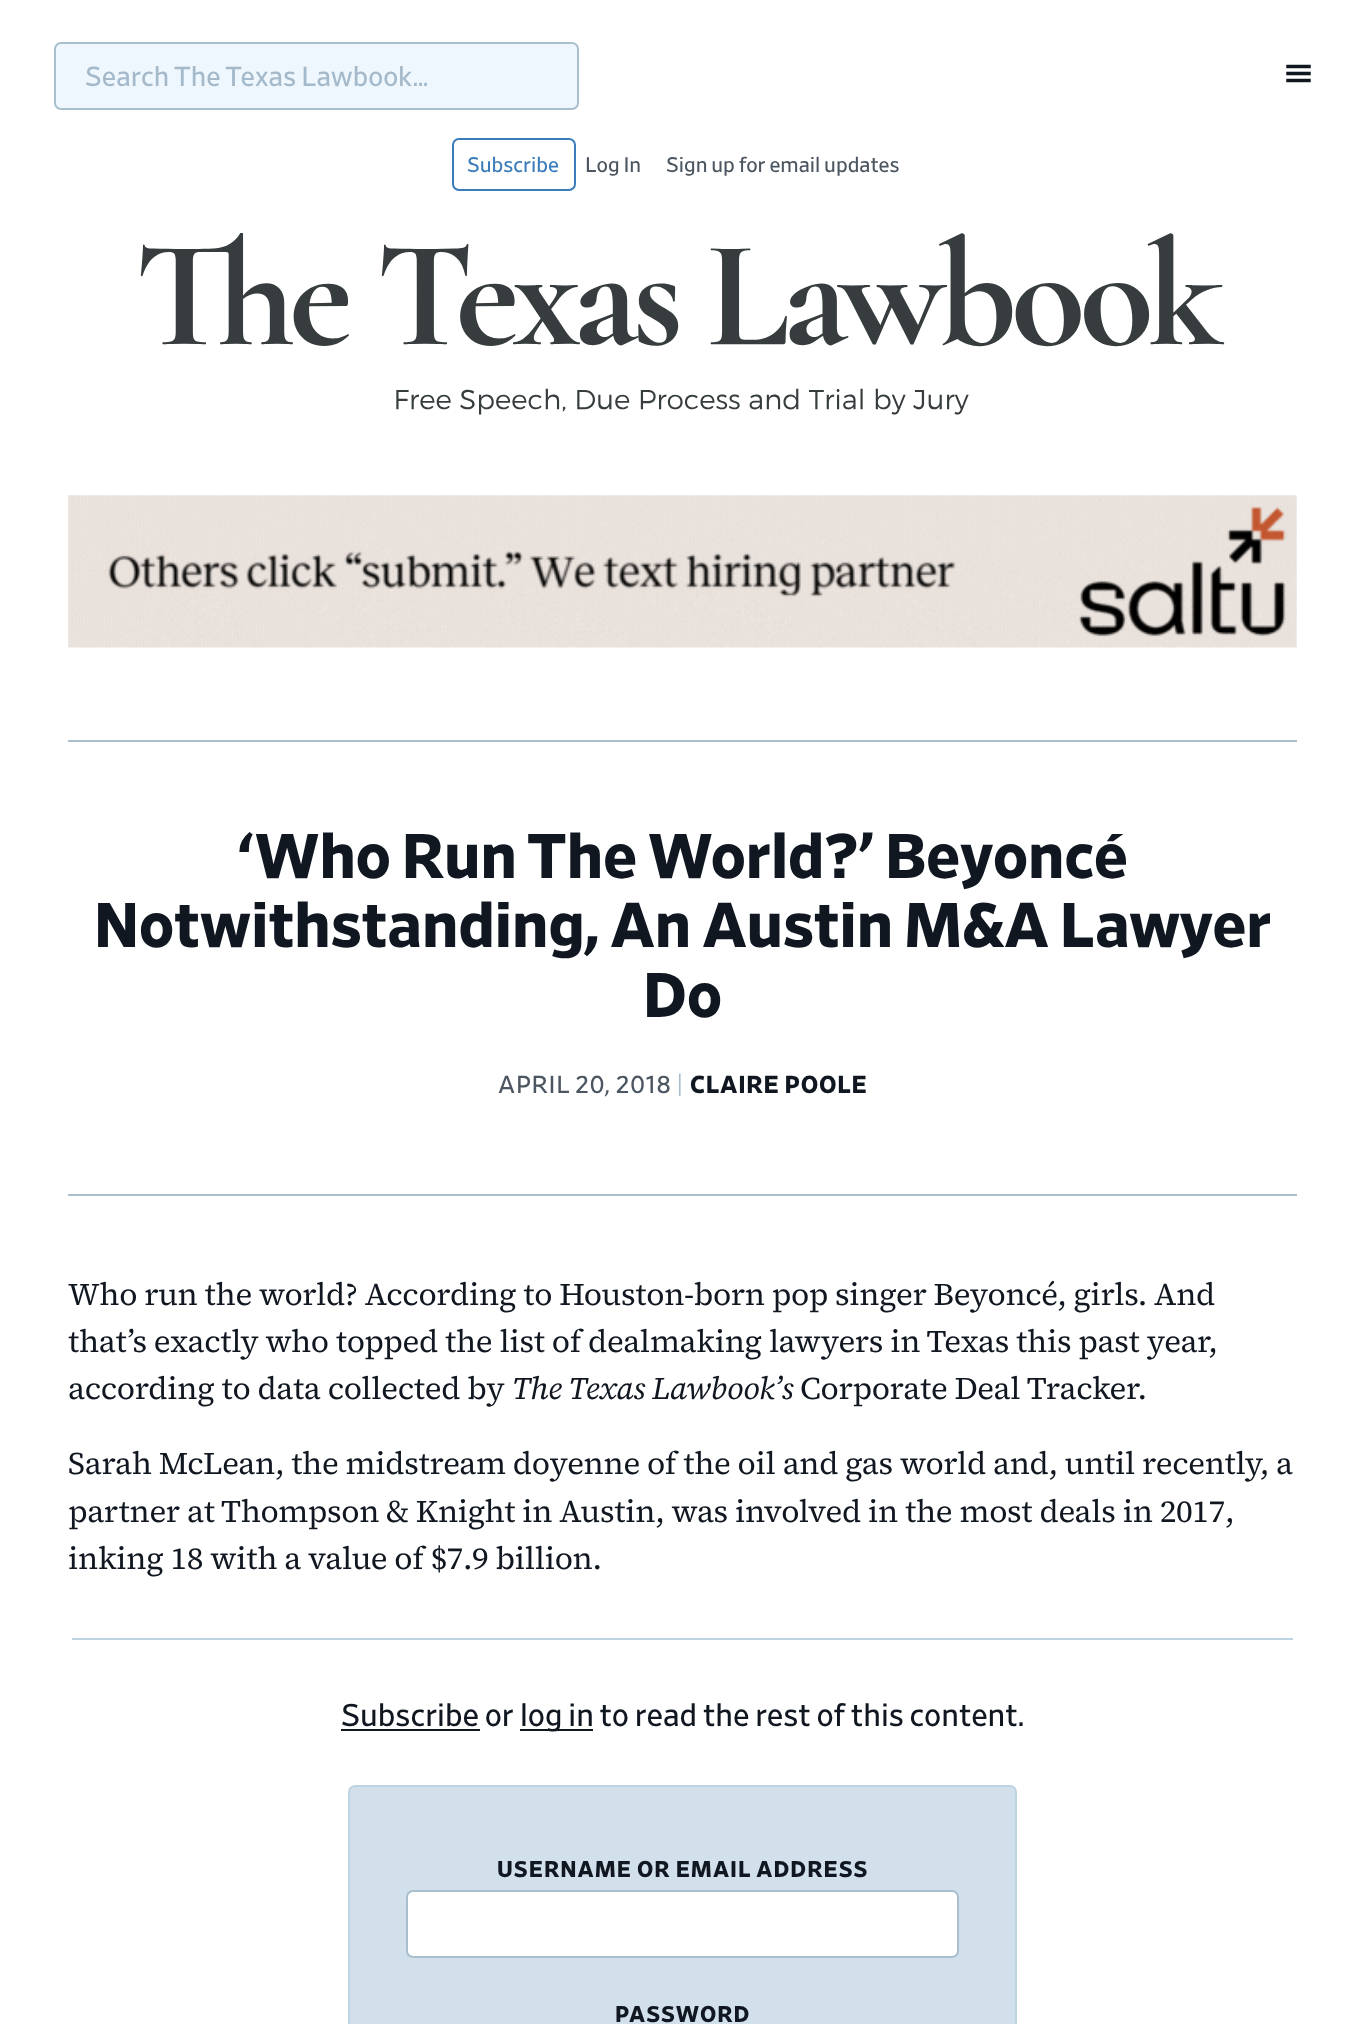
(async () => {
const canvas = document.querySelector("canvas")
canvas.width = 1364
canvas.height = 2024
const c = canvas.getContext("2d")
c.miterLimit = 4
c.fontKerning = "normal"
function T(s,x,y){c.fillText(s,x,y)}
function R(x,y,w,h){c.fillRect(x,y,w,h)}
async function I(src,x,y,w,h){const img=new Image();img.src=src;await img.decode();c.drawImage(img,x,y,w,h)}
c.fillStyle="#fff"
R(0,0,1364,2024)
c.fillStyle="#eff7fe"
c.beginPath()
c.roundRect(55,43,523,66,6)
c.fill()
c.strokeStyle="#aabfce"
c.lineWidth=2
c.stroke()
c.font="27.5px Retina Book"
c.fillStyle="#a4b9ca"
T("Search The Texas Lawbook...",85,86)
c.beginPath()
c.roundRect(453,139,122,51,6)
c.strokeStyle="#3b7cbb"
c.stroke()
c.font="21px Retina Book"
c.fillStyle="#3b7cbb"
T("Subscribe",467,172)
c.fillStyle="#4c5660"
T("Log In",585,172)
T("Sign up for email updates",666,172)
await I("1.png",1286,64,25,19)
await I("2.png",140,233,1085,182)
await I("3.png",68,495,1229,153)
c.fillStyle="#aabfce"
R(68,740,1229,2)
R(68,1194,1229,2)
c.font="bold 63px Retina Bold"
c.fillStyle="#101720"
T("‘Who Run The World?’ Beyoncé",238,878)
T("Notwithstanding, An Austin M&A Lawyer",94,947)
T("Do",643,1017)
c.letterSpacing="0.75px"
c.font="24.5px Retina Book"
c.fillStyle="#4c5660"
T("APRIL 20, 2018",498,1093)
c.fillStyle="#aabfce"
T("|",676,1093)
c.font="bold 24.5px Retina Bold"
c.fillStyle="#101720"
T("CLAIRE POOLE",690,1093)
c.letterSpacing="-0.35px"
c.font="31.5px 'Source Serif 4'"
T("Who run the world? According to Houston-born pop singer Beyoncé, girls. And",68,1305)
T("that’s exactly who topped the list of dealmaking lawyers in Texas this past year,",68,1352)
T("according to data collected by",68,1399)
c.font="italic 31.5px 'Source Serif 4'"
T("The Texas Lawbook’s",512,1399)
c.font="31.5px 'Source Serif 4'"
T("Corporate Deal Tracker.",800,1399)
T("Sarah McLean, the midstream doyenne of the oil and gas world and, until recently, a",68,1474)
T("partner at Thompson & Knight in Austin, was involved in the most deals in 2017,",68,1522)
T("inking 18 with a value of $7.9 billion.",68,1569)
c.fillStyle="#bfd4e3"
R(72,1638,1221,2)
c.letterSpacing="0px"
c.font="31.5px Retina Book"
c.fillStyle="#101720"
T("Subscribe or",341,1726)
R(341,1729,139,2)
R(520,1729,73,2)
T("log in to read the rest of this content.",520,1726)
c.fillStyle="#d1e0eb"
c.beginPath()
c.roundRect(349,1786,667,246,6)
c.fill()
c.strokeStyle="#bfd4e3"
c.stroke()
c.letterSpacing="1.05px"
c.font="bold 22.75px Retina Bold"
c.fillStyle="#101720"
T("USERNAME OR EMAIL ADDRESS",497,1877)
c.fillStyle="#fff"
c.beginPath()
c.roundRect(407,1891,551,66,6)
c.fill()
c.strokeStyle="#aabfce"
c.stroke()
c.fillStyle="#101720"
T("PASSWORD",615,2022)
})()
